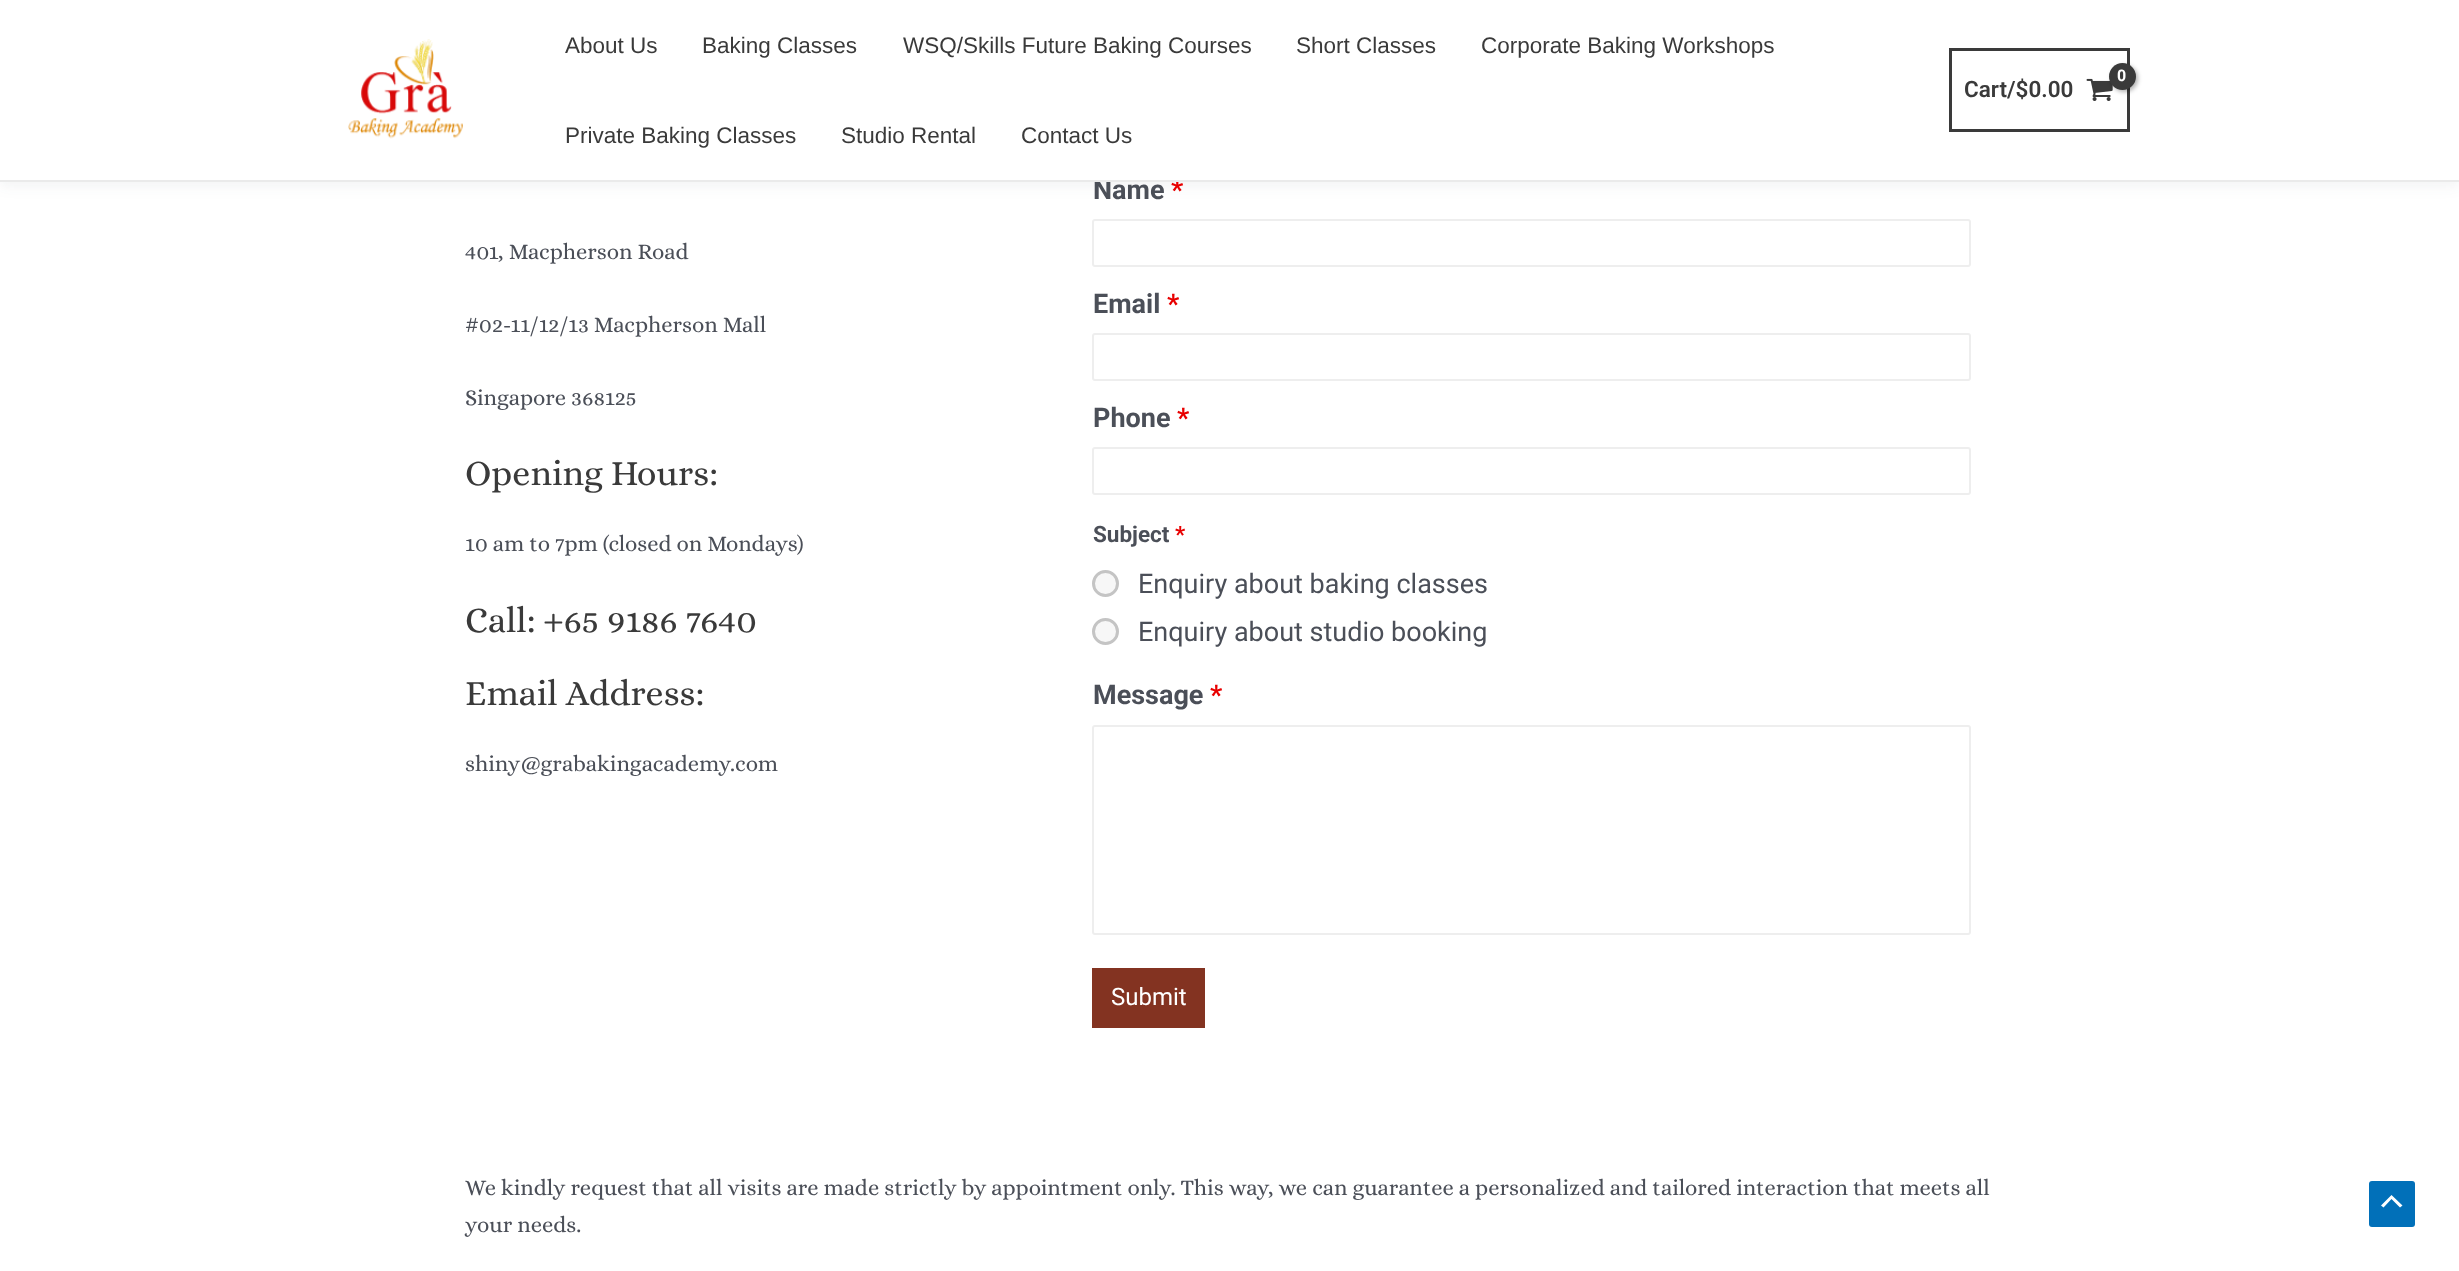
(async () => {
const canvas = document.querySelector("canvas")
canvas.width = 2459
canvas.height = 1271
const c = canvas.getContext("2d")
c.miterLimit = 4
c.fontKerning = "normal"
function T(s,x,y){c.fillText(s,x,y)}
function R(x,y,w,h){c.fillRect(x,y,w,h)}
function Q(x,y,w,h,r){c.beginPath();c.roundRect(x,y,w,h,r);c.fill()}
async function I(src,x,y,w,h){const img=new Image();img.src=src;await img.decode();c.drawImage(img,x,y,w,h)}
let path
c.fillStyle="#fff"
R(0,0,2459,1271)
c.fillStyle="#24324212"
c.filter="blur(7.5px)"
c.beginPath()
c.rect(0,3,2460,182)
c.fill()
c.filter="none"
c.font="bold 27px Roboto"
c.fillStyle="#4b4f58"
T("Name",1093,199)
c.fillStyle="#e80000"
T("*",1171,199)
c.fillStyle="#fff"
R(0,0,2459,180)
c.fillStyle="#eaeaea"
R(0,180,2459,2)
await I("1.png",348,39,115,100)
c.font="22.5px Liberation Sans"
c.fillStyle="#3a3a3a"
T("About Us",565,53)
T("Baking Classes",702,53)
T("WSQ/Skills Future Baking Courses",903,53)
T("Short Classes",1296,53)
T("Corporate Baking Workshops",1481,53)
T("Private Baking Classes",565,143)
T("Studio Rental",841,143)
T("Contact Us",1021,143)
c.strokeStyle="#3a3a3a"
c.lineWidth=3
c.strokeRect(1950.5,49.5,178,81)
await I("2.png",2086,78,27,23)
c.fillStyle="#0000004d"
c.filter="blur(2px)"
c.beginPath()
c.roundRect(2111,65,27,27,13.5)
c.fill()
c.filter="none"
c.fillStyle="#3a3a3a"
c.beginPath()
c.arc(2122.5,76.5,13.5,0,7)
c.fill()
c.letterSpacing="-1px"
c.font="bold 16px Roboto"
c.fillStyle="#fff"
T("0",2117,81)
c.letterSpacing="0px"
c.font="600 22.5px Roboto"
c.fillStyle="#3a3a3a"
T("Cart/$0.00",1964,97)
c.font="22.5px Alice"
c.fillStyle="#4b4f58"
T("401, Macpherson Road",465,259)
T("#02-11/12/13 Macpherson Mall",465,332)
T("Singapore 368125",465,405)
c.font="36px Alice"
c.fillStyle="#3a3a3a"
T("Opening Hours:",465,485)
c.font="22.5px Alice"
c.fillStyle="#4b4f58"
T("10 am to 7pm (closed on Mondays)",465,551)
c.font="36px Alice"
c.fillStyle="#3a3a3a"
T("Call: +65 9186 7640",465,632)
T("Email Address:",465,705)
c.font="22.5px Alice"
c.fillStyle="#4b4f58"
T("shiny@grabakingacademy.com",465,771)
c.beginPath()
c.roundRect(1093,220,877,46,2)
c.strokeStyle="#eee"
c.lineWidth=2
c.stroke()
c.font="bold 27px Roboto"
T("Email",1093,313)
c.fillStyle="#e80000"
T("*",1167,313)
c.beginPath()
c.roundRect(1093,334,877,46,2)
c.stroke()
c.fillStyle="#4b4f58"
T("Phone",1093,427)
c.fillStyle="#e80000"
T("*",1177,427)
c.beginPath()
c.roundRect(1093,448,877,46,2)
c.stroke()
c.font="bold 22.5px Roboto"
c.fillStyle="#4b4f58"
T("Subject",1093,542)
c.fillStyle="#e80000"
T("*",1175,542)
c.fillStyle="#f7f7f7"
c.beginPath()
c.arc(1105.5,583.5,12,0,7)
c.fill()
c.strokeStyle="#c4c4c4"
c.lineWidth=3
c.stroke()
c.font="27px Roboto"
c.fillStyle="#4b4f58"
T("Enquiry about baking classes",1138,593)
c.fillStyle="#f7f7f7"
c.beginPath()
c.arc(1105.5,631.5,12,0,7)
c.fill()
c.stroke()
c.fillStyle="#4b4f58"
T("Enquiry about studio booking",1138,641)
c.font="bold 27px Roboto"
T("Message",1093,704)
c.fillStyle="#e80000"
T("*",1210,704)
c.beginPath()
c.roundRect(1093,726,877,208,2)
c.strokeStyle="#eee"
c.lineWidth=2
c.stroke()
c.fillStyle="#833321"
R(1092,968,113,60)
c.font="24px Roboto"
c.fillStyle="#fff"
T("Submit",1111,1005)
c.font="22.5px Alice"
c.fillStyle="#4b4f58"
T("We kindly request that all visits are made strictly by appointment only. This way, we can guarantee a personalized and tailored interaction that meets all",465,1195)
T("your needs.",465,1232)
c.fillStyle="#0170b9"
Q(2369,1181,46,46,3)
c.fillStyle="#fff"
path = new Path2D("M2402.5 1205.5l-11-10.5l-10.5 10.5l2.5 2l8-8.5l8.5 8.5z")
c.fill(path)
})()
